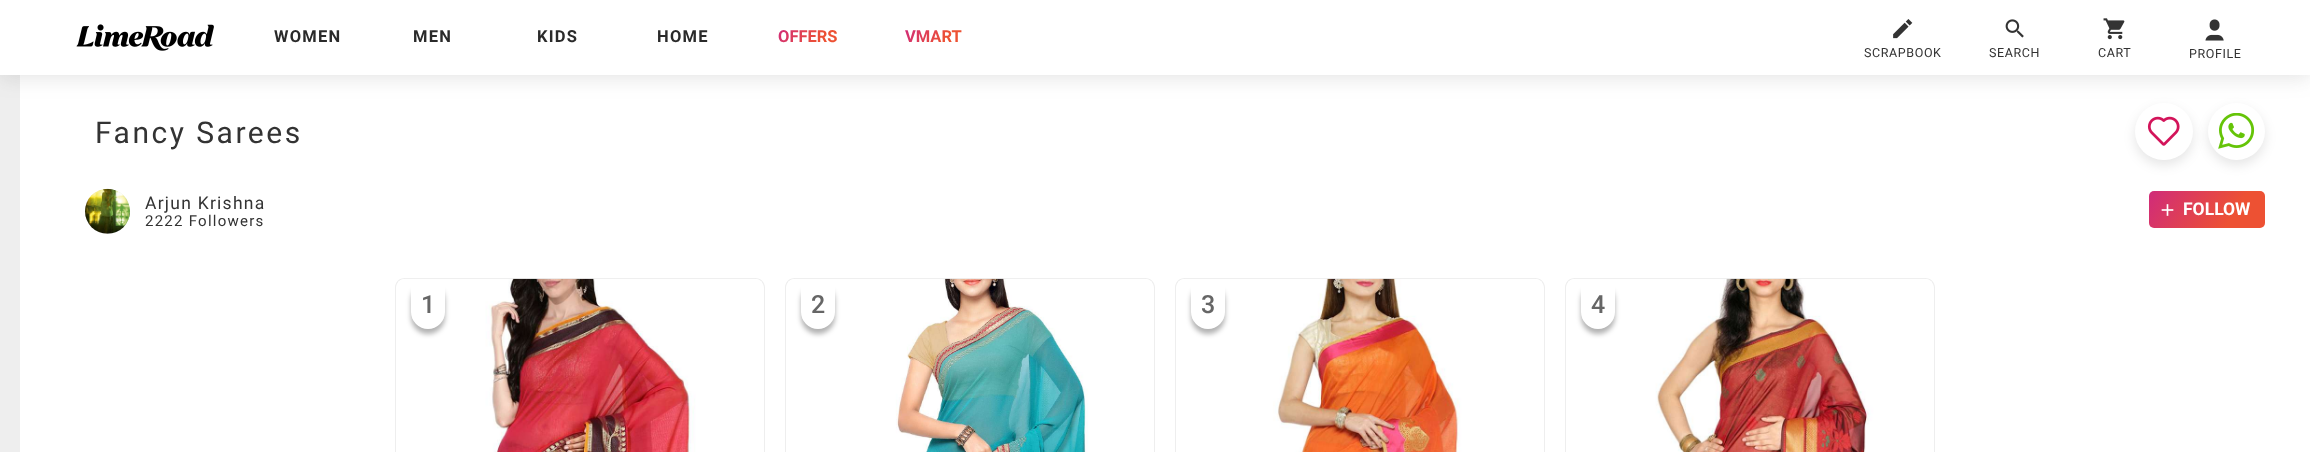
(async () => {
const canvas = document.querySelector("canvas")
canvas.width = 2310
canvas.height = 452
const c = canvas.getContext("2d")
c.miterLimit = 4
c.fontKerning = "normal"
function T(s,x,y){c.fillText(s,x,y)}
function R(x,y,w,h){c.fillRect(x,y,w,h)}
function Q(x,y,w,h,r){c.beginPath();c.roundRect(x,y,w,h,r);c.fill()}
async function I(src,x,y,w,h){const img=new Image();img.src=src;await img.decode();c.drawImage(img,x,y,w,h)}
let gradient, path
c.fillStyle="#eee"
R(0,0,2310,452)
c.fillStyle="#fff"
R(20,75,2290,377)
c.fillStyle="#0000001a"
c.filter="blur(6px)"
c.beginPath()
c.roundRect(2208,108,57,57,28.5)
c.fill()
c.filter="none"
c.fillStyle="#fff"
c.beginPath()
c.arc(2236.5,131.5,28.5,0,7)
c.fill()
c.fillStyle="#0000001a"
c.filter="blur(6px)"
c.beginPath()
c.roundRect(2135,108,58,57,28.5)
c.fill()
c.filter="none"
c.fillStyle="#fff"
Q(2135,103,58,57,28.5)
c.fillStyle="#55555529"
c.filter="blur(10px)"
c.beginPath()
c.rect(0,3,2310,75)
c.fill()
c.filter="none"
c.fillStyle="#fff"
R(0,0,2310,75)
await I("1.png",76,24,138,27)
c.letterSpacing="1.25px"
c.font="bold 16.5px Roboto"
c.fillStyle="#2a2a2a"
T("WOMEN",274,42)
T("MEN",413,42)
T("KIDS",537,42)
T("HOME",657,42)
c.letterSpacing="0px"
gradient = c.createLinearGradient(780,19,832,53)
gradient.addColorStop(0,"#ce297e")
gradient.addColorStop(.73,"#ed5133")
c.fillStyle = gradient
T("OFFERS",778,42)
gradient = c.createLinearGradient(906,20,957,52)
gradient.addColorStop(0,"#ce297e")
gradient.addColorStop(.73,"#ed5133")
c.fillStyle = gradient
T("VMART",905,42)
await I("2.png",1893,19,20,20)
c.letterSpacing="0.6px"
c.font="12.5px Roboto"
c.fillStyle="#333"
T("SCRAPBOOK",1864,57)
await I("3.png",2005,19,19,19)
T("SEARCH",1989,57)
await I("4.png",2103,18,22,22)
T("CART",2098,57)
await I("5.png",2205,19,19,22)
T("PROFILE",2189,58)
c.letterSpacing="2.5px"
c.font="30px Roboto"
T("Fancy Sarees",95,143)
await I("6.png",2147,116,33,30)
await I("7.png",2218,113,37,36)
c.fillStyle="#ddd"
c.beginPath()
c.arc(107.5,211.5,22.5,0,7)
c.fill()
await I("8.png",85,188,45,46)
c.letterSpacing="1.25px"
c.font="17.5px Roboto"
c.fillStyle="#333"
T("Arjun Krishna",145,209)
c.font="15px Roboto"
T("2222 Followers",145,226)
gradient = c.createLinearGradient(2153,175,2256,241)
gradient.addColorStop(0,"#ce297e")
gradient.addColorStop(.73,"#ed5133")
c.fillStyle = gradient
Q(2149,191,116,37,5)
await I("9.png",2161,204,13,12)
c.letterSpacing="0px"
c.font="bold 17.5px Roboto"
c.fillStyle="#fff"
T("FOLLOW",2183,215)
c.fillStyle="#eee"
path = new Path2D("M405 278h350c6 0 10 4 10 10v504h-370v-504c0-6 4-10 10-10zm0 1h350c5 0 9 4 9 9v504h-368v-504c0-5 4-9 9-9z")
c.fill(path,"evenodd")
await I("10.png",398,278,364,174)
c.fillStyle="#0000004d"
c.filter="blur(2.5px)"
c.beginPath()
c.roundRect(411,284,34,50,17)
c.fill()
c.filter="none"
c.fillStyle="#fff"
c.beginPath()
c.roundRect(411,279,34,50,[0,0,17,17])
c.fill()
c.font="500 25px Roboto"
c.fillStyle="#666"
T("1",421,313)
c.fillStyle="#eee"
path = new Path2D("M795 278h350c6 0 10 4 10 10v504h-370v-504c0-6 4-10 10-10zm0 1h350c5 0 9 4 9 9v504h-368v-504c0-5 4-9 9-9z")
c.fill(path,"evenodd")
await I("11.png",788,278,364,174)
c.fillStyle="#0000004d"
c.filter="blur(2.5px)"
c.beginPath()
c.roundRect(801,284,34,50,17)
c.fill()
c.filter="none"
c.fillStyle="#fff"
c.beginPath()
c.roundRect(801,279,34,50,[0,0,17,17])
c.fill()
c.fillStyle="#666"
T("2",811,313)
c.fillStyle="#eee"
path = new Path2D("M1185 278h350c6 0 10 4 10 10v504h-370v-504c0-6 4-10 10-10zm0 1h350c5 0 9 4 9 9v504h-368v-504c0-5 4-9 9-9z")
c.fill(path,"evenodd")
await I("12.png",1178,278,364,174)
c.fillStyle="#0000004d"
c.filter="blur(2.5px)"
c.beginPath()
c.roundRect(1191,284,34,50,17)
c.fill()
c.filter="none"
c.fillStyle="#fff"
c.beginPath()
c.roundRect(1191,279,34,50,[0,0,17,17])
c.fill()
c.fillStyle="#666"
T("3",1201,313)
c.fillStyle="#eee"
path = new Path2D("M1575 278h350c6 0 10 4 10 10v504h-370v-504c0-6 4-10 10-10zm0 1h350c5 0 9 4 9 9v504h-368v-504c0-5 4-9 9-9z")
c.fill(path,"evenodd")
await I("13.png",1568,278,364,174)
c.fillStyle="#0000004d"
c.filter="blur(2.5px)"
c.beginPath()
c.roundRect(1581,284,34,50,17)
c.fill()
c.filter="none"
c.fillStyle="#fff"
c.beginPath()
c.roundRect(1581,279,34,50,[0,0,17,17])
c.fill()
c.fillStyle="#666"
T("4",1591,313)
})()
